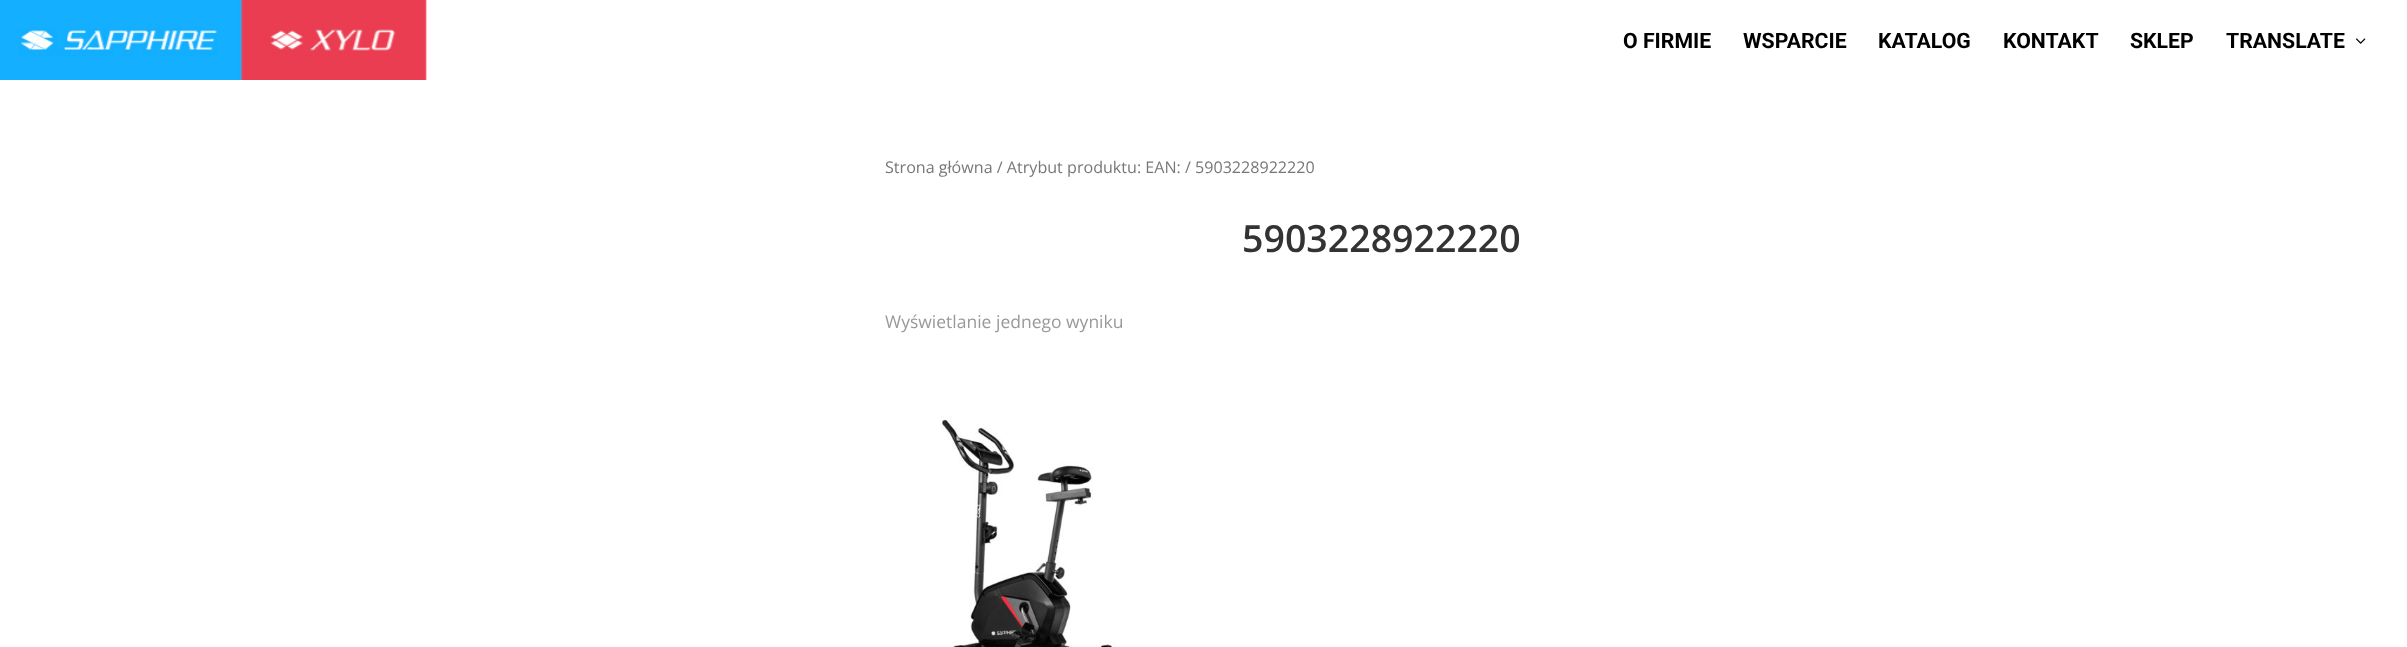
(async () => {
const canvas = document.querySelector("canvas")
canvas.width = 2407
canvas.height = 647
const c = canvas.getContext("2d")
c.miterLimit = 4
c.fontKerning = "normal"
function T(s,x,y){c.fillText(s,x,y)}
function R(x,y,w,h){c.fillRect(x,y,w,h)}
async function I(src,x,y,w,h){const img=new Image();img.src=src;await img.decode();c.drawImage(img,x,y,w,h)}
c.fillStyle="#fff"
R(0,0,2407,647)
await I("1.png",0,0,427,80)
c.font="bold 21.25px Roboto"
c.fillStyle="#000"
T("O FIRMIE",1623,48)
T("WSPARCIE",1743,48)
T("KATALOG",1878,48)
T("KONTAKT",2003,48)
T("SKLEP",2130,48)
T("TRANSLATE",2226,48)
await I("2.png",2356,38,10,6)
c.font="16.1px Open Sans"
c.fillStyle="#777"
T("Strona główna / Atrybut produktu: EAN: / 5903228922220",885,173)
c.font="600 37.5px Open Sans"
c.fillStyle="#333"
T("5903228922220",1242,252)
c.font="17.5px Open Sans"
c.fillStyle="#999"
T("Wyświetlanie jednego wyniku",885,328)
await I("3.png",941,416,175,231)
})()
